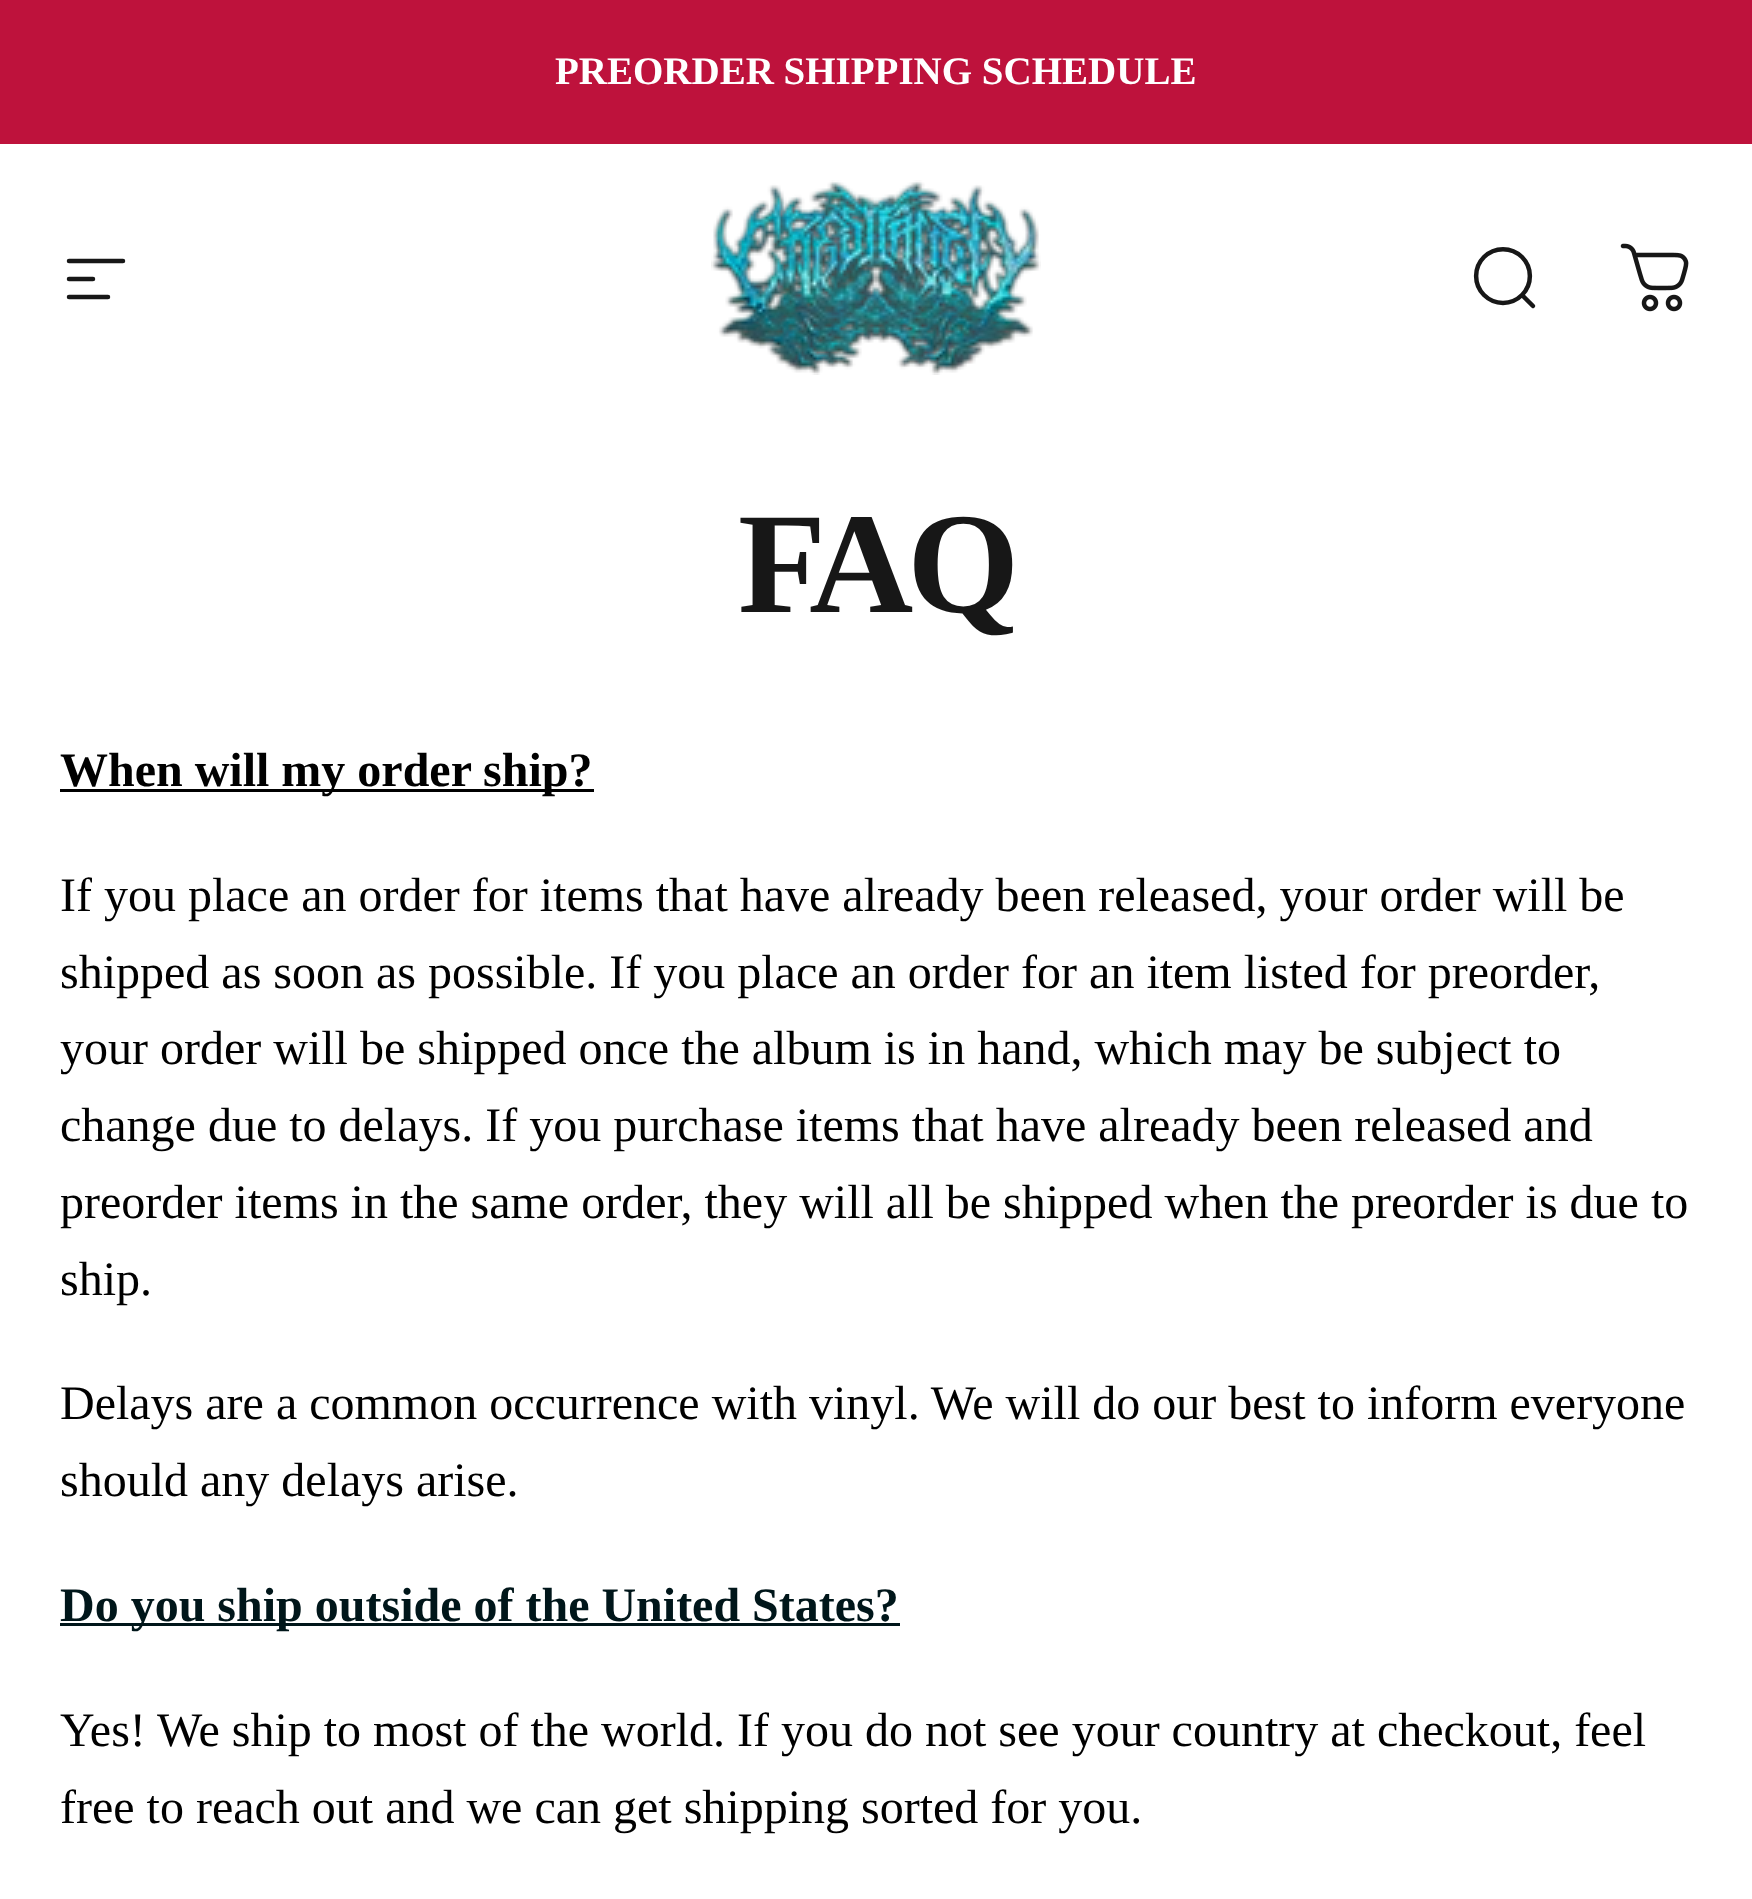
(async () => {
const canvas = document.querySelector("canvas")
canvas.width = 1752
canvas.height = 1899
const c = canvas.getContext("2d")
c.miterLimit = 4
c.fontKerning = "normal"
function T(s,x,y){c.fillText(s,x,y)}
function R(x,y,w,h){c.fillRect(x,y,w,h)}
async function I(src,x,y,w,h){const img=new Image();img.src=src;await img.decode();c.drawImage(img,x,y,w,h)}
let path
c.fillStyle="#fff"
R(0,0,1752,1899)
c.fillStyle="#be123c"
R(0,0,1752,144)
c.font="bold 39px Liberation Serif"
c.fillStyle="#fff"
T("PREORDER SHIPPING SCHEDULE",555,84)
path = new Path2D("M69 261h54m-54 18h24m-24 18h39")
c.strokeStyle="#171717"
c.lineWidth=4.5
c.lineCap="round"
c.stroke(path)
await I("1.png",711,180,330,195)
path = new Path2D("M1533 306l-11-11m0 0c10.5-10.5 10.5-27.5 0-38c-10.5-10.5-27.5-10.5-38 0c-10.5 10.5-10.5 27.5 0 38c10.5 10.5 27.5 10.5 38 0z")
c.stroke(path)
await I("2.png",1620,243,69,69)
c.letterSpacing="-6px"
c.font="bold 144px Liberation Serif"
c.fillStyle="#171717"
T("FAQ",738,612)
c.fillStyle="#000"
R(60,789,534,3)
c.letterSpacing="0px"
c.font="bold 48px Liberation Serif"
T("When will my order ship?",60,786)
c.font="48px Liberation Serif"
T("If you place an order for items that have already been released, your order will be",60,911)
T("shipped as soon as possible. If you place an order for an item listed for preorder,",60,988)
T("your order will be shipped once the album is in hand, which may be subject to",60,1064)
T("change due to delays. If you purchase items that have already been released and",60,1141)
T("preorder items in the same order, they will all be shipped when the preorder is due to",60,1218)
T("ship.",60,1295)
T("Delays are a common occurrence with vinyl. We will do our best to inform everyone",60,1419)
T("should any delays arise.",60,1496)
c.fillStyle="#00161a"
R(60,1623,840,3)
c.font="bold 48px Liberation Serif"
T("Do you ship outside of the United States?",60,1621)
c.font="48px Liberation Serif"
c.fillStyle="#000"
T("Yes! We ship to most of the world. If you do not see your country at checkout, feel",60,1746)
T("free to reach out and we can get shipping sorted for you.",60,1823)
})()
